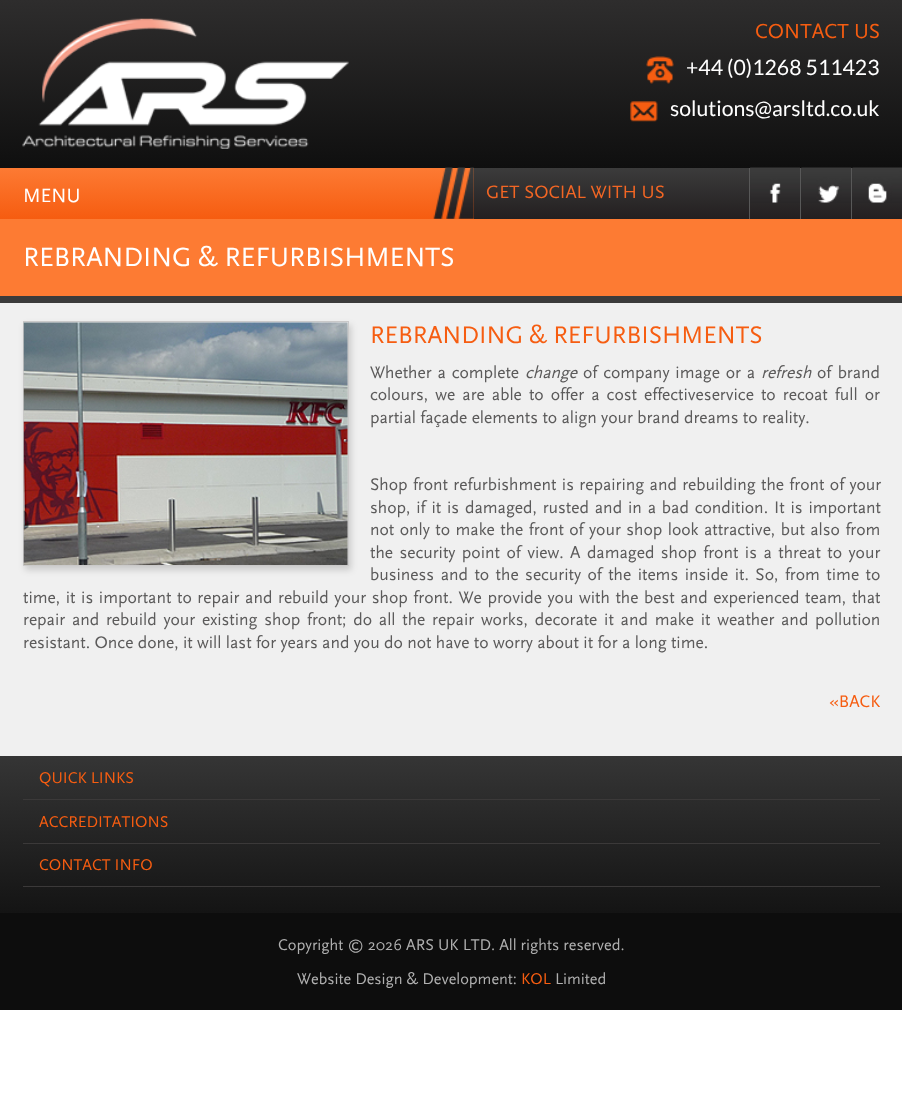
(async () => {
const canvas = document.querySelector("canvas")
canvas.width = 902
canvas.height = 1118
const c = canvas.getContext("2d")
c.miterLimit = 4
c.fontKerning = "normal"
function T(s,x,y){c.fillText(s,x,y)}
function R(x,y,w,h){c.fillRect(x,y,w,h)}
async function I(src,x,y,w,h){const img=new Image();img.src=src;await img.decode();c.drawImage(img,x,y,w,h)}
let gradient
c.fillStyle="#fff"
R(0,0,902,1118)
gradient = c.createLinearGradient(451,0,451,168)
gradient.addColorStop(0,"#2e2d2d")
gradient.addColorStop(1,"#0f0f0f")
c.fillStyle = gradient
R(0,0,902,168)
await I("1.png",22,18,327,131)
c.font="21.25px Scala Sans"
c.fillStyle="#f65d11"
T("CONTACT US",755,38)
await I("2.png",646,56,28,28)
c.font="21.25px Lato"
c.fillStyle="#fff"
T("+44 (0)1268 511423",686,75)
await I("3.png",630,101,28,21)
T("solutions@arsltd.co.uk",670,116)
gradient = c.createLinearGradient(451,167,451,219)
gradient.addColorStop(0,"#fd7b34")
gradient.addColorStop(1,"#f65c10")
c.fillStyle = gradient
R(0,168,474,51)
c.font="20px Scala Sans"
c.fillStyle="#fff"
T("MENU",23,202)
gradient = c.createLinearGradient(688,167,688,219)
gradient.addColorStop(0,"#3c3c3c")
gradient.addColorStop(1,"#231f20")
c.fillStyle = gradient
R(474,168,428,51)
await I("4.png",433,167,41,52)
c.font="18.75px Scala Sans"
c.fillStyle="#f26624"
T("GET SOCIAL WITH US",486,198)
await I("5.png",750,167,50,36)
c.fillStyle="#585858"
R(749,168,1,51)
await I("6.png",801,167,51,36)
R(800,168,1,51)
await I("7.png",852,167,50,36)
R(851,168,1,51)
c.fillStyle="#f0f0f0"
R(0,303,902,453)
c.fillStyle="#fd7b33"
R(0,219,902,77)
c.fillStyle="#3b3b3b"
R(0,296,902,7)
c.font="27.5px Scala Sans"
c.fillStyle="#fff"
T("REBRANDING & REFURBISHMENTS",23,266)
c.fillStyle="#32323233"
c.filter="blur(3px)"
c.beginPath()
c.rect(25,325,326,245)
c.fill()
c.filter="none"
c.strokeStyle="#cac9c9"
c.strokeRect(23.5,321.5,325,244)
await I("8.png",23,322,325,243)
c.font="25px Scala Sans"
c.fillStyle="#f65d11"
T("REBRANDING & REFURBISHMENTS",370,343)
c.wordSpacing="1.5px"
c.font="17.5px Scala Sans"
c.fillStyle="#5c5b5b"
T("Whether a complete",370,378)
c.wordSpacing="0px"
c.font="italic 17.5px Scala Sans"
T("change",525,378)
c.wordSpacing="1.5px"
c.font="17.5px Scala Sans"
T("of company image or a",583,378)
c.wordSpacing="0px"
c.font="italic 17.5px Scala Sans"
T("refresh",761,378)
c.wordSpacing="2px"
c.font="17.5px Scala Sans"
T("of brand",817,378)
c.wordSpacing="2.75px"
T("colours, we are able to offer a cost effectiveservice to recoat full or",370,400)
c.wordSpacing="0px"
T("partial façade elements to align your brand dreams to reality.",370,423)
c.wordSpacing="1px"
T("Shop front refurbishment is repairing and rebuilding the front of your",370,490)
c.wordSpacing="1.5px"
T("shop, if it is damaged, rusted and in a bad condition. It is important",370,513)
c.wordSpacing="1.1px"
T("not only to make the front of your shop look attractive, but also from",370,535)
c.wordSpacing="2.1px"
T("the security point of view. A damaged shop front is a threat to your",370,558)
T("business and to the security of the items inside it. So, from time to",370,580)
c.wordSpacing="1.25px"
T("time, it is important to repair and rebuild your shop front. We provide you with the best and experienced team, that",23,603)
c.wordSpacing="2.4px"
T("repair and rebuild your existing shop front; do all the repair works, decorate it and make it weather and pollution",23,625)
c.wordSpacing="0px"
T("resistant. Once done, it will last for years and you do not have to worry about it for a long time.",23,648)
c.fillStyle="#f65d11"
T("«BACK",829,707)
gradient = c.createLinearGradient(451,756,451,913)
gradient.addColorStop(0,"#353535")
gradient.addColorStop(1,"#141414")
c.fillStyle = gradient
R(0,756,902,157)
c.fillStyle="#3b3939"
R(23,799,857,1)
c.font="16.25px Scala Sans"
c.fillStyle="#f65d11"
T("QUICK LINKS",39,783)
c.fillStyle="#3b3939"
R(23,843,857,1)
c.fillStyle="#f65d11"
T("ACCREDITATIONS",39,827)
c.fillStyle="#3b3939"
R(23,886,857,1)
c.fillStyle="#f65d11"
T("CONTACT INFO",39,870)
c.fillStyle="#0d0d0d"
R(0,913,902,97)
c.fillStyle="#afafaf"
T("Copyright © 2026 ARS UK LTD. All rights reserved.",278,950)
T("Website Design & Development:",297,984)
c.fillStyle="#f65d11"
T("KOL",521,984)
c.fillStyle="#afafaf"
T("Limited",555,984)
})()
